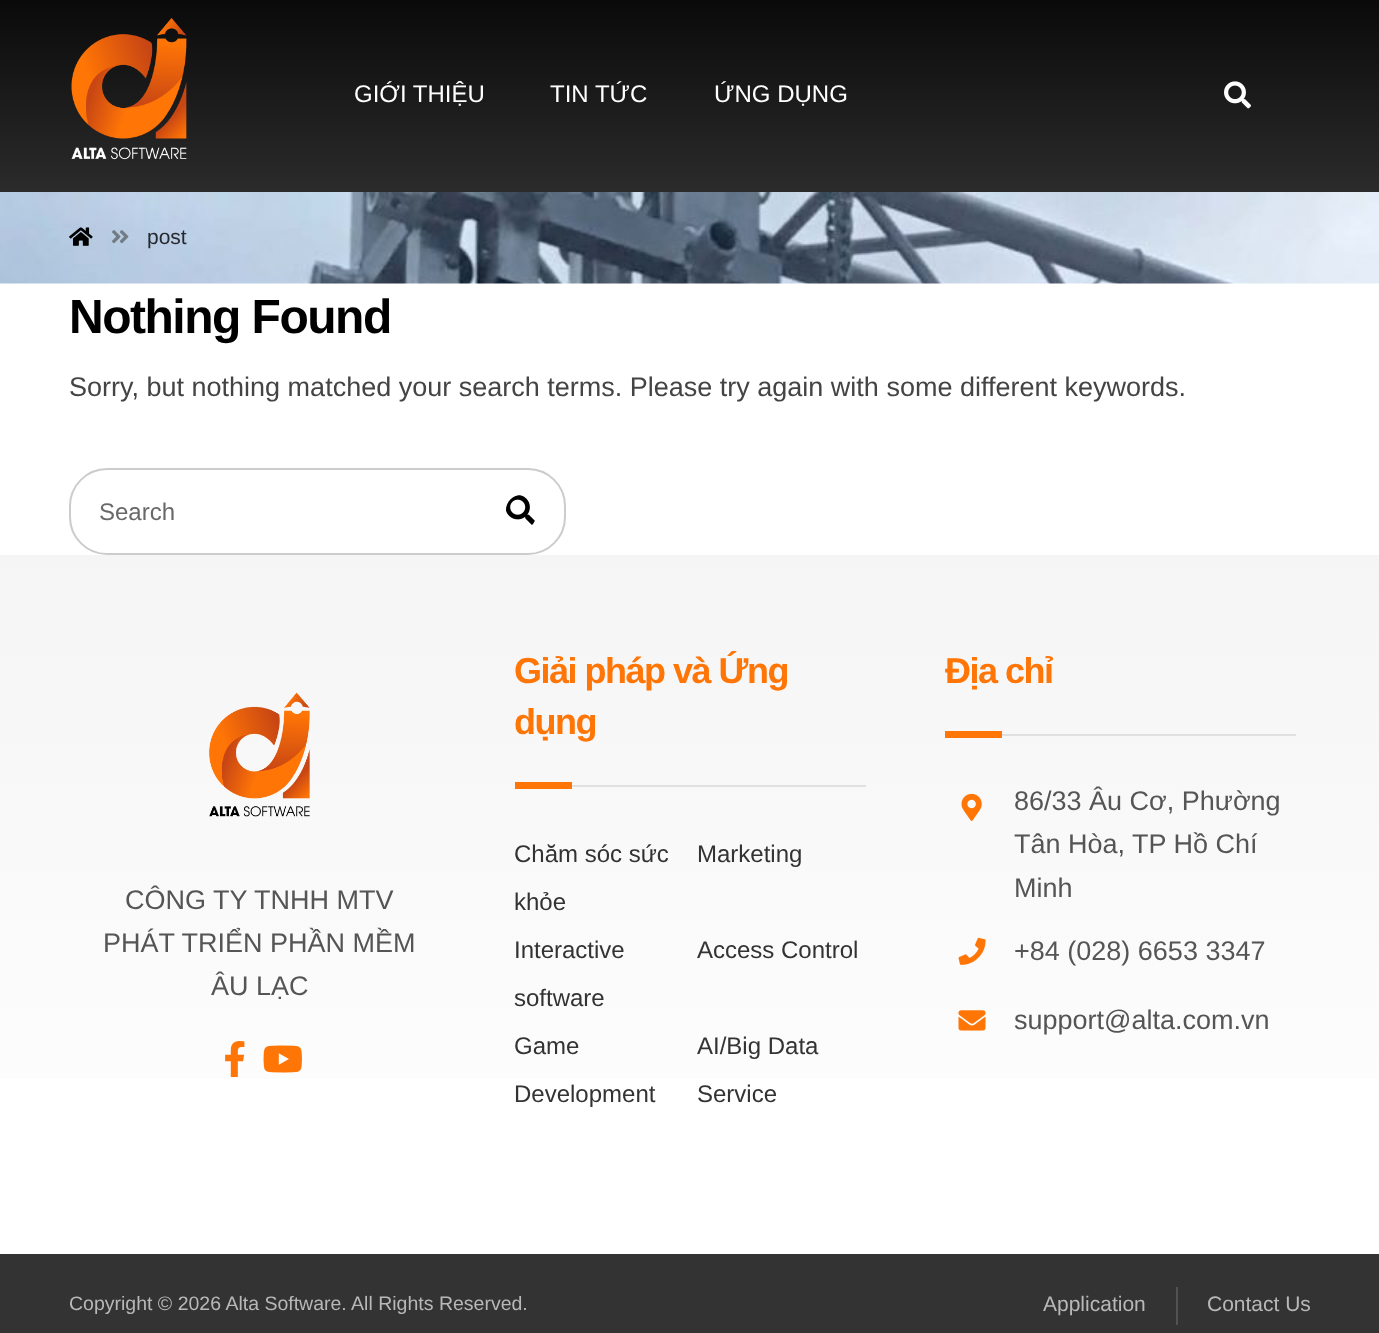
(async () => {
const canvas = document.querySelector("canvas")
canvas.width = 1379
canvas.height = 1333
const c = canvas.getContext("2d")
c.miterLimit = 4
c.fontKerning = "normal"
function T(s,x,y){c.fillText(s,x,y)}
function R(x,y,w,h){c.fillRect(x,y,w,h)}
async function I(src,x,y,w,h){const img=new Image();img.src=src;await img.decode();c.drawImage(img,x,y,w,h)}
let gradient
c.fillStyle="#fff"
R(0,0,1379,1333)
gradient = c.createLinearGradient(690,0,690,192)
gradient.addColorStop(0,"#0a0a0a")
gradient.addColorStop(1,"#2b2b2b")
c.fillStyle = gradient
R(0,0,1379,192)
await I("1.png",71,18,116,142)
c.font="24px Liberation Sans"
c.fillStyle="#fff"
T("GIỚI THIỆU",354,102)
T("TIN TỨC",550,102)
T("ỨNG DỤNG",714,102)
await I("2.png",1224,81,27,28)
await I("3.png",0,192,1379,92)
await I("4.png",69,227,24,19)
await I("5.png",112,230,17,14)
c.font="21px Liberation Sans"
c.fillStyle="#26292e"
T("post",147,244)
c.letterSpacing="-1.5px"
c.font="bold 48px Liberation Sans"
c.fillStyle="#000"
T("Nothing Found",69,333)
c.letterSpacing="0px"
c.font="27px Liberation Sans"
c.fillStyle="#444"
T("Sorry, but nothing matched your search terms. Please try again with some different keywords.",69,396)
c.beginPath()
c.roundRect(70,469,495,85,37)
c.strokeStyle="#ccc"
c.lineWidth=2
c.stroke()
c.font="24px Liberation Sans"
c.fillStyle="#696969"
T("Search",99,520)
await I("6.png",506,495,29,30)
gradient = c.createLinearGradient(690,555,690,1254)
gradient.addColorStop(0,"#f5f5f5")
gradient.addColorStop(1,"#fff")
c.fillStyle = gradient
R(0,555,1379,524)
await I("7.png",209,692,101,125)
c.font="27px Liberation Sans"
c.fillStyle="#555"
T("CÔNG TY TNHH MTV",125,909)
T("PHÁT TRIỂN PHẦN MỀM",103,952)
T("ÂU LẠC",211,995)
await I("8.png",225,1041,20,36)
await I("9.png",263,1045,39,28)
c.fillStyle="#e0e0e0"
R(572,785,294,2)
c.letterSpacing="-1.5px"
c.font="bold 36px Liberation Sans"
c.fillStyle="#ff7506"
T("Giải pháp và Ứng",514,683)
T("dụng",514,734)
R(515,782,57,7)
c.letterSpacing="0px"
c.font="24px Liberation Sans"
c.fillStyle="#333"
T("Chăm sóc sức",514,862)
T("khỏe",514,910)
T("Marketing",697,862)
T("Interactive",514,958)
T("software",514,1006)
T("Access Control",697,958)
T("Game",514,1054)
T("Development",514,1102)
T("AI/Big Data",697,1054)
T("Service",697,1102)
c.fillStyle="#e0e0e0"
R(1002,734,294,2)
c.letterSpacing="-1.5px"
c.font="bold 36px Liberation Sans"
c.fillStyle="#ff7506"
T("Địa chỉ",945,683)
R(945,731,57,7)
await I("10.png",961,793,21,28)
c.letterSpacing="0px"
c.font="27px Liberation Sans"
c.fillStyle="#555"
T("86/33 Âu Cơ, Phường",1014,810)
T("Tân Hòa, TP Hồ Chí",1014,853)
T("Minh",1014,897)
await I("11.png",958,937,28,28)
T("+84 (028) 6653 3347",1014,960)
await I("12.png",958,1010,28,21)
T("support@alta.com.vn",1014,1029)
c.fillStyle="#333"
R(0,1254,1379,79)
c.font="19.5px Liberation Sans"
c.fillStyle="#b8b8b8"
T("Copyright © 2026 Alta Software. All Rights Reserved.",69,1310)
c.font="21px Liberation Sans"
T("Application",1043,1311)
c.fillStyle="#525252"
R(1176,1287,2,38)
c.fillStyle="#b8b8b8"
T("Contact Us",1207,1311)
})()
